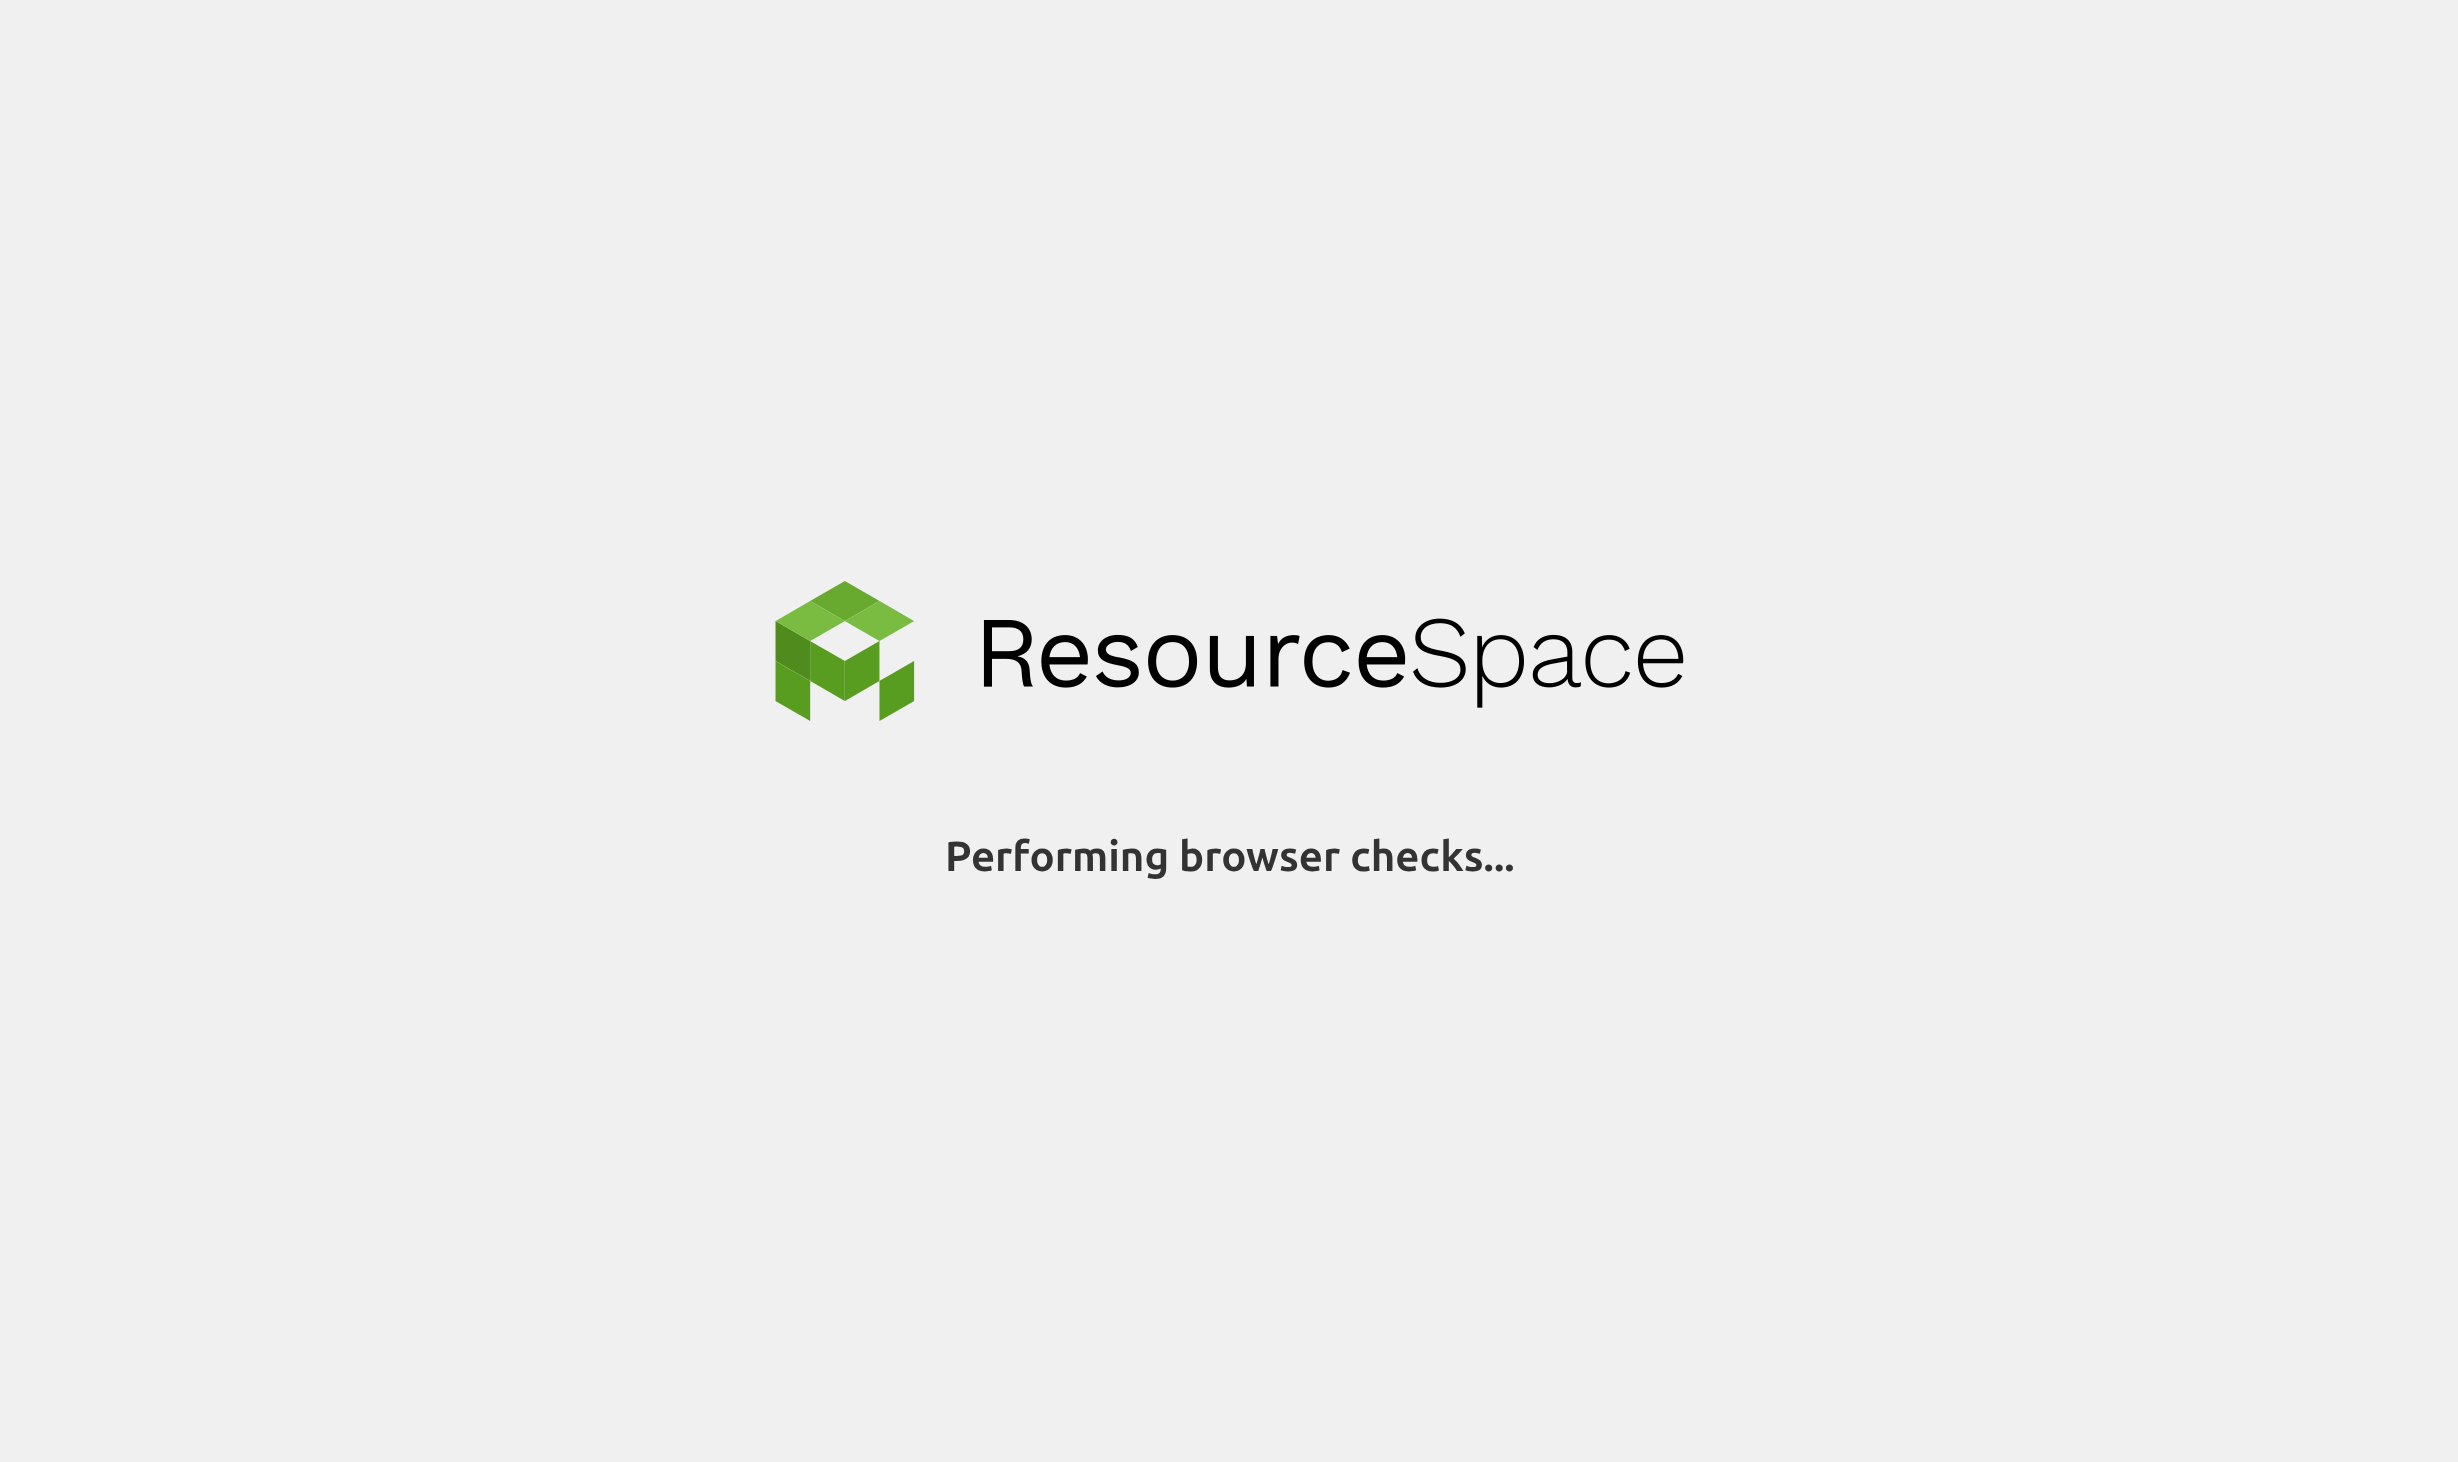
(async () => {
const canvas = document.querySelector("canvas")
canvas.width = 2458
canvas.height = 1462
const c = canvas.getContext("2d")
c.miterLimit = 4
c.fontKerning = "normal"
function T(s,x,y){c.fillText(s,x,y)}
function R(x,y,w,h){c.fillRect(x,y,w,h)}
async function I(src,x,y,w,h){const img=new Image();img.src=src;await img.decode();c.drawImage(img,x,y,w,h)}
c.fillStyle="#f0f0f0"
R(0,0,2458,1462)
await I("1.png",775,581,909,140)
c.font="bold 42px Ubuntu"
c.fillStyle="#333"
T("Performing browser checks...",945,871)
})()
